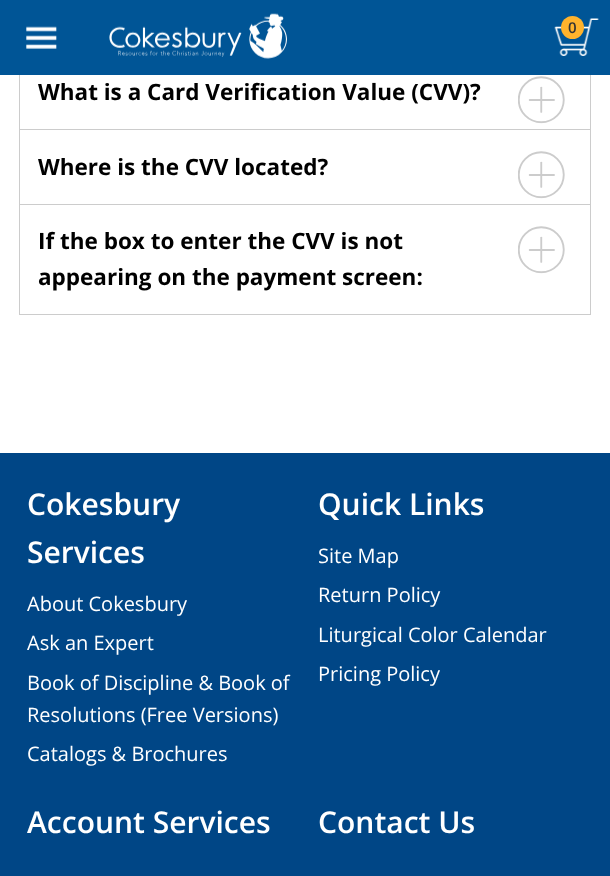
(async () => {
const canvas = document.querySelector("canvas")
canvas.width = 610
canvas.height = 876
const c = canvas.getContext("2d")
c.miterLimit = 4
c.fontKerning = "normal"
function T(s,x,y){c.fillText(s,x,y)}
function R(x,y,w,h){c.fillRect(x,y,w,h)}
async function I(src,x,y,w,h){const img=new Image();img.src=src;await img.decode();c.drawImage(img,x,y,w,h)}
c.fillStyle="#fff"
R(0,0,610,876)
c.fillStyle="#005596"
R(0,0,610,75)
await I("1.png",26,26,31,23)
await I("2.png",109,13,178,46)
await I("3.png",554,18,45,38)
c.fillStyle="#ffb32c"
c.beginPath()
c.arc(572.5,27.5,11.5,0,7)
c.fill()
c.font="600 15px Open Sans"
c.fillStyle="#333"
T("0",568,33)
c.fillStyle="#ccc"
R(590,75,1,240)
R(19,75,1,240)
R(20,129,570,1)
c.font="bold 22.5px Open Sans"
c.fillStyle="#000"
T("What is a Card Verification Value (CVV)?",38,100)
await I("4.png",518,76,47,48)
c.fillStyle="#ccc"
R(20,204,570,1)
c.fillStyle="#000"
T("Where is the CVV located?",38,175)
await I("5.png",518,151,47,48)
c.fillStyle="#ccc"
R(20,314,570,1)
c.fillStyle="#000"
T("If the box to enter the CVV is not",38,249)
await I("5.png",518,226,47,48)
T("appearing on the payment screen:",38,285)
c.fillStyle="#004686"
R(0,453,610,423)
c.font="600 30px Open Sans"
c.fillStyle="#fff"
T("Cokesbury",27,515)
T("Services",27,563)
c.font="20px Open Sans"
T("About Cokesbury",27,611)
T("Ask an Expert",27,650)
T("Book of Discipline & Book of",27,690)
T("Resolutions (Free Versions)",27,722)
T("Catalogs & Brochures",27,761)
c.font="600 30px Open Sans"
T("Quick Links",318,515)
c.font="20px Open Sans"
T("Site Map",318,563)
T("Return Policy",318,602)
T("Liturgical Color Calendar",318,642)
T("Pricing Policy",318,681)
c.font="600 30px Open Sans"
T("Account Services",27,833)
T("Contact Us",318,833)
})()
